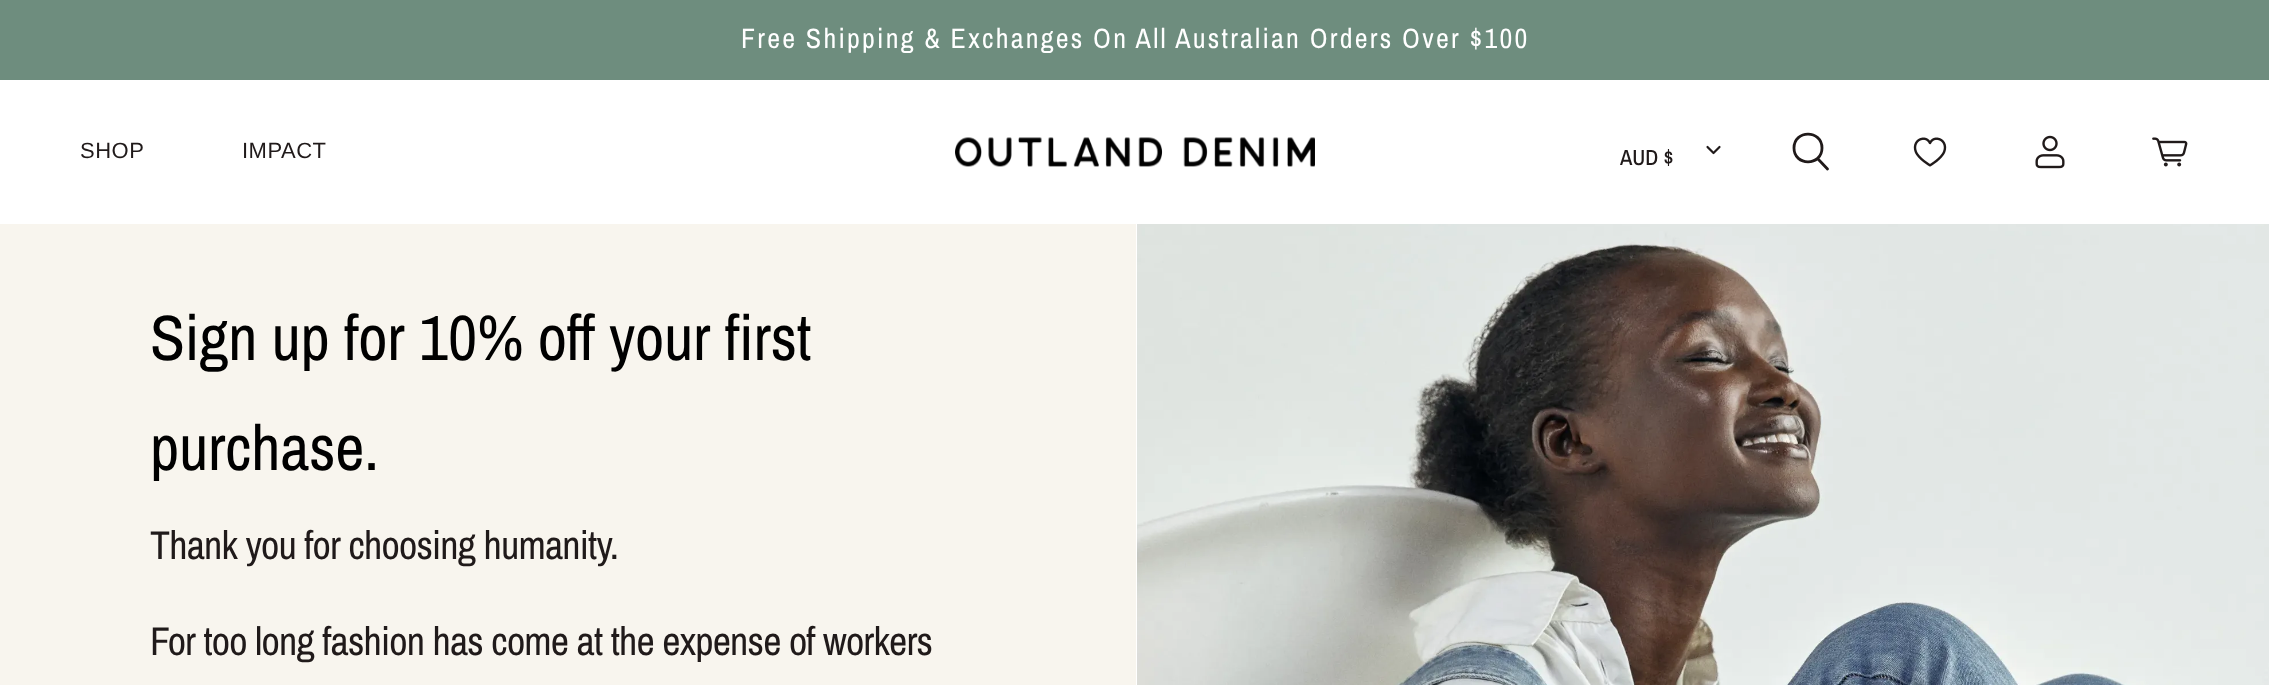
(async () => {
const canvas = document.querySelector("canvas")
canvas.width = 2269
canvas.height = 685
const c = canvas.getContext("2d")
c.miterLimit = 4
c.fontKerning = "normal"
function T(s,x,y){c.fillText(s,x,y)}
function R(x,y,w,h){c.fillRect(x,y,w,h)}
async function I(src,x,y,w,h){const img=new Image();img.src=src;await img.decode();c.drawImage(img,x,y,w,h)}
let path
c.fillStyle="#fff"
R(0,0,2269,685)
c.fillStyle="#6e8d7e"
R(0,0,2269,80)
c.letterSpacing="2.25px"
c.font="28px Archivo Narrow"
c.fillStyle="#fff"
T("Free Shipping & Exchanges On All Australian Orders Over $100",741,48)
c.letterSpacing="0.5px"
c.font="22px Liberation Sans"
c.fillStyle="#201a1a"
T("SHOP",80,158)
T("IMPACT",242,158)
await I("1.png",955,137,360,30)
c.letterSpacing="0px"
c.font="500 22px Archivo Narrow"
T("AUD $",1620,165)
path = new Path2D("M1719.5 147l-6 6l-6-6")
c.strokeStyle="#201a1a"
c.lineWidth=2.2
c.lineCap="round"
c.lineJoin="round"
c.stroke(path)
path = new Path2D("M1818 159l9.5 10m-5.5-21c0 18.5-28 18.5-28 0c0-18.5 28-18.5 28 0z")
c.lineWidth=2.8
c.stroke(path)
await I("2.png",1913,137,34,30)
await I("3.png",2035,135,30,34)
await I("4.png",2152,137,36,30)
c.fillStyle="#f8f5ee"
R(0,224,1136,461)
c.letterSpacing="-0.2px"
c.font="64px Archivo Narrow"
c.fillStyle="#000"
T("Sign up for 10% off your first",150,360)
T("purchase.",150,470)
c.letterSpacing="-0.8px"
c.font="40px Archivo Narrow"
c.fillStyle="#201a1a"
T("Thank you for choosing humanity.",150,559)
T("For too long fashion has come at the expense of workers",150,655)
await I("5.png",1137,224,1132,461)
})()
